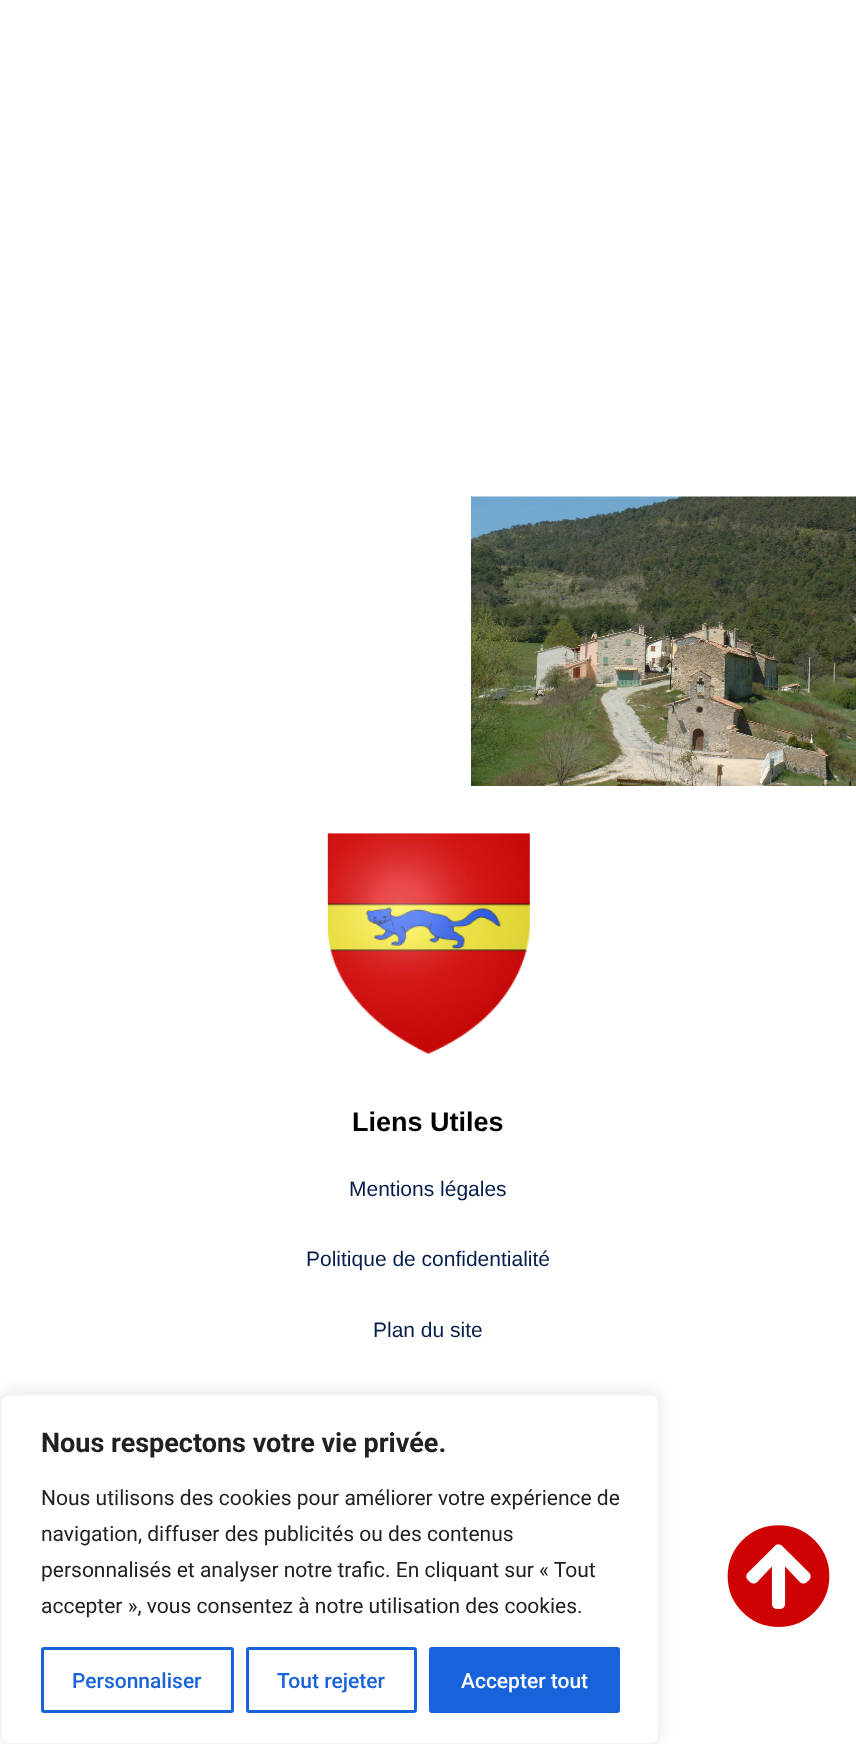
(async () => {
const canvas = document.querySelector("canvas")
canvas.width = 856
canvas.height = 1744
const c = canvas.getContext("2d")
c.miterLimit = 4
c.fontKerning = "normal"
function T(s,x,y){c.fillText(s,x,y)}
function R(x,y,w,h){c.fillRect(x,y,w,h)}
async function I(src,x,y,w,h){const img=new Image();img.src=src;await img.decode();c.drawImage(img,x,y,w,h)}
c.fillStyle="#fff"
R(0,0,856,1744)
await I("1.png",471,496,385,290)
await I("2.png",327,833,203,221)
c.font="bold 27px Liberation Sans"
c.fillStyle="#000"
T("Liens Utiles",352,1131)
c.font="21px Liberation Sans"
c.fillStyle="#051d4b"
T("Mentions légales",349,1196)
T("Politique de confidentialité",306,1266)
T("Plan du site",373,1337)
c.fillStyle="#acabab4d"
c.filter="blur(7.5px)"
c.beginPath()
c.roundRect(0,1392,660,351,9)
c.fill()
c.filter="none"
c.fillStyle="#fff"
c.beginPath()
c.roundRect(1,1395,658,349,8)
c.fill()
c.strokeStyle="#f4f4f4"
c.lineWidth=2
c.stroke()
c.font="bold 27px Roboto"
c.fillStyle="#212121"
T("Nous respectons votre vie privée.",41,1452)
c.font="21px Roboto"
T("Nous utilisons des cookies pour améliorer votre expérience de",41,1505)
T("navigation, diffuser des publicités ou des contenus",41,1541)
T("personnalisés et analyser notre trafic. En cliquant sur « Tout",41,1577)
T("accepter », vous consentez à notre utilisation des cookies.",41,1613)
c.beginPath()
c.roundRect(42.5,1648.5,190,63,1.5)
c.strokeStyle="#1863dc"
c.lineWidth=3
c.stroke()
c.font="500 21px Roboto"
c.fillStyle="#1863dc"
T("Personnaliser",72,1688)
c.beginPath()
c.roundRect(247.5,1648.5,168,63,1.5)
c.stroke()
T("Tout rejeter",277,1688)
c.beginPath()
c.roundRect(430.5,1648.5,188,63,1.5)
c.fill()
c.stroke()
c.fillStyle="#fff"
T("Accepter tout",461,1688)
await I("3.png",727,1525,103,102)
})()
